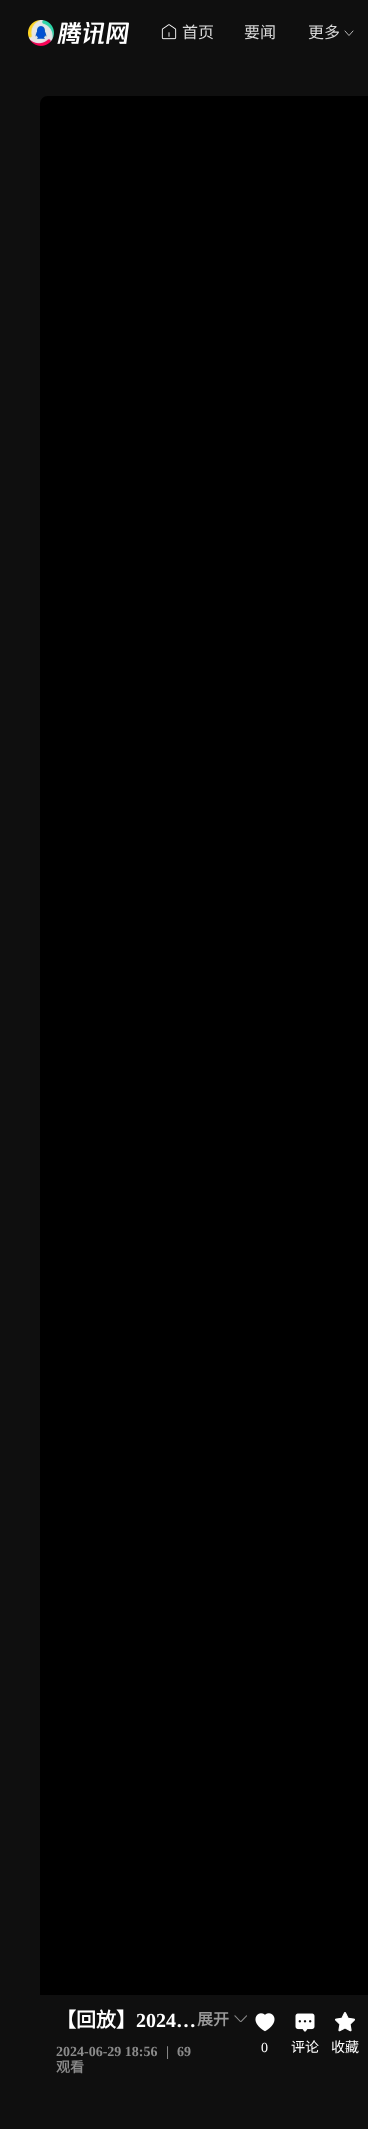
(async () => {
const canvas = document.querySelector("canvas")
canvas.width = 368
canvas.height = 2129
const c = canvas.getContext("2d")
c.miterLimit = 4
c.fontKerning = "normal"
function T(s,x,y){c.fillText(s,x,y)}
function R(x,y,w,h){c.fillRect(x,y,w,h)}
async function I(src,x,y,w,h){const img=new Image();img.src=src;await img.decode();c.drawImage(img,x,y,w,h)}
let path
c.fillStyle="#0f0f0f"
R(0,0,368,2129)
await I("1.png",28,20,101,26)
await I("2.png",161,24,16,16)
c.font="16px Noto Sans CJK SC"
c.fillStyle="#d9d9d9"
T("首页",182,38)
T("要闻",244,38)
T("更多",308,38)
path = new Path2D("M353 31l-4 4.5l-4-4.5")
c.strokeStyle="#fff"
c.lineWidth=0.7
c.lineCap="round"
c.lineJoin="round"
c.stroke(path)
c.fillStyle="#000"
path = new Path2D("M48 96h320c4.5 0 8 3.5 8 8v1891h-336v-1891c0-4.5 3.5-8 8-8z")
c.fill(path)
c.font="bold 20px Noto Sans CJK SC"
c.fillStyle="#fff"
T("【回放】",56,2027)
c.font="bold 20px Liberation Serif"
T("2024…",136,2027)
c.font="bold 16px Noto Sans CJK SC"
c.fillStyle="#999"
T("展开",197,2025)
await I("3.png",234,2015,13,7)
c.font="bold 14px Liberation Serif"
c.fillStyle="#8b8b8b"
T("2024-06-29 18:56",56,2056)
T("|",166,2056)
T("69",177,2056)
c.font="bold 14px Noto Sans CJK SC"
T("观看",56,2072)
await I("4.png",255,2013,20,19)
c.font="14px Liberation Serif"
c.fillStyle="#fff"
T("0",261,2052)
await I("5.png",295,2013,20,19)
c.font="14px Noto Sans CJK SC"
T("评论",291,2052)
await I("6.png",335,2012,20,20)
T("收藏",331,2052)
})()
